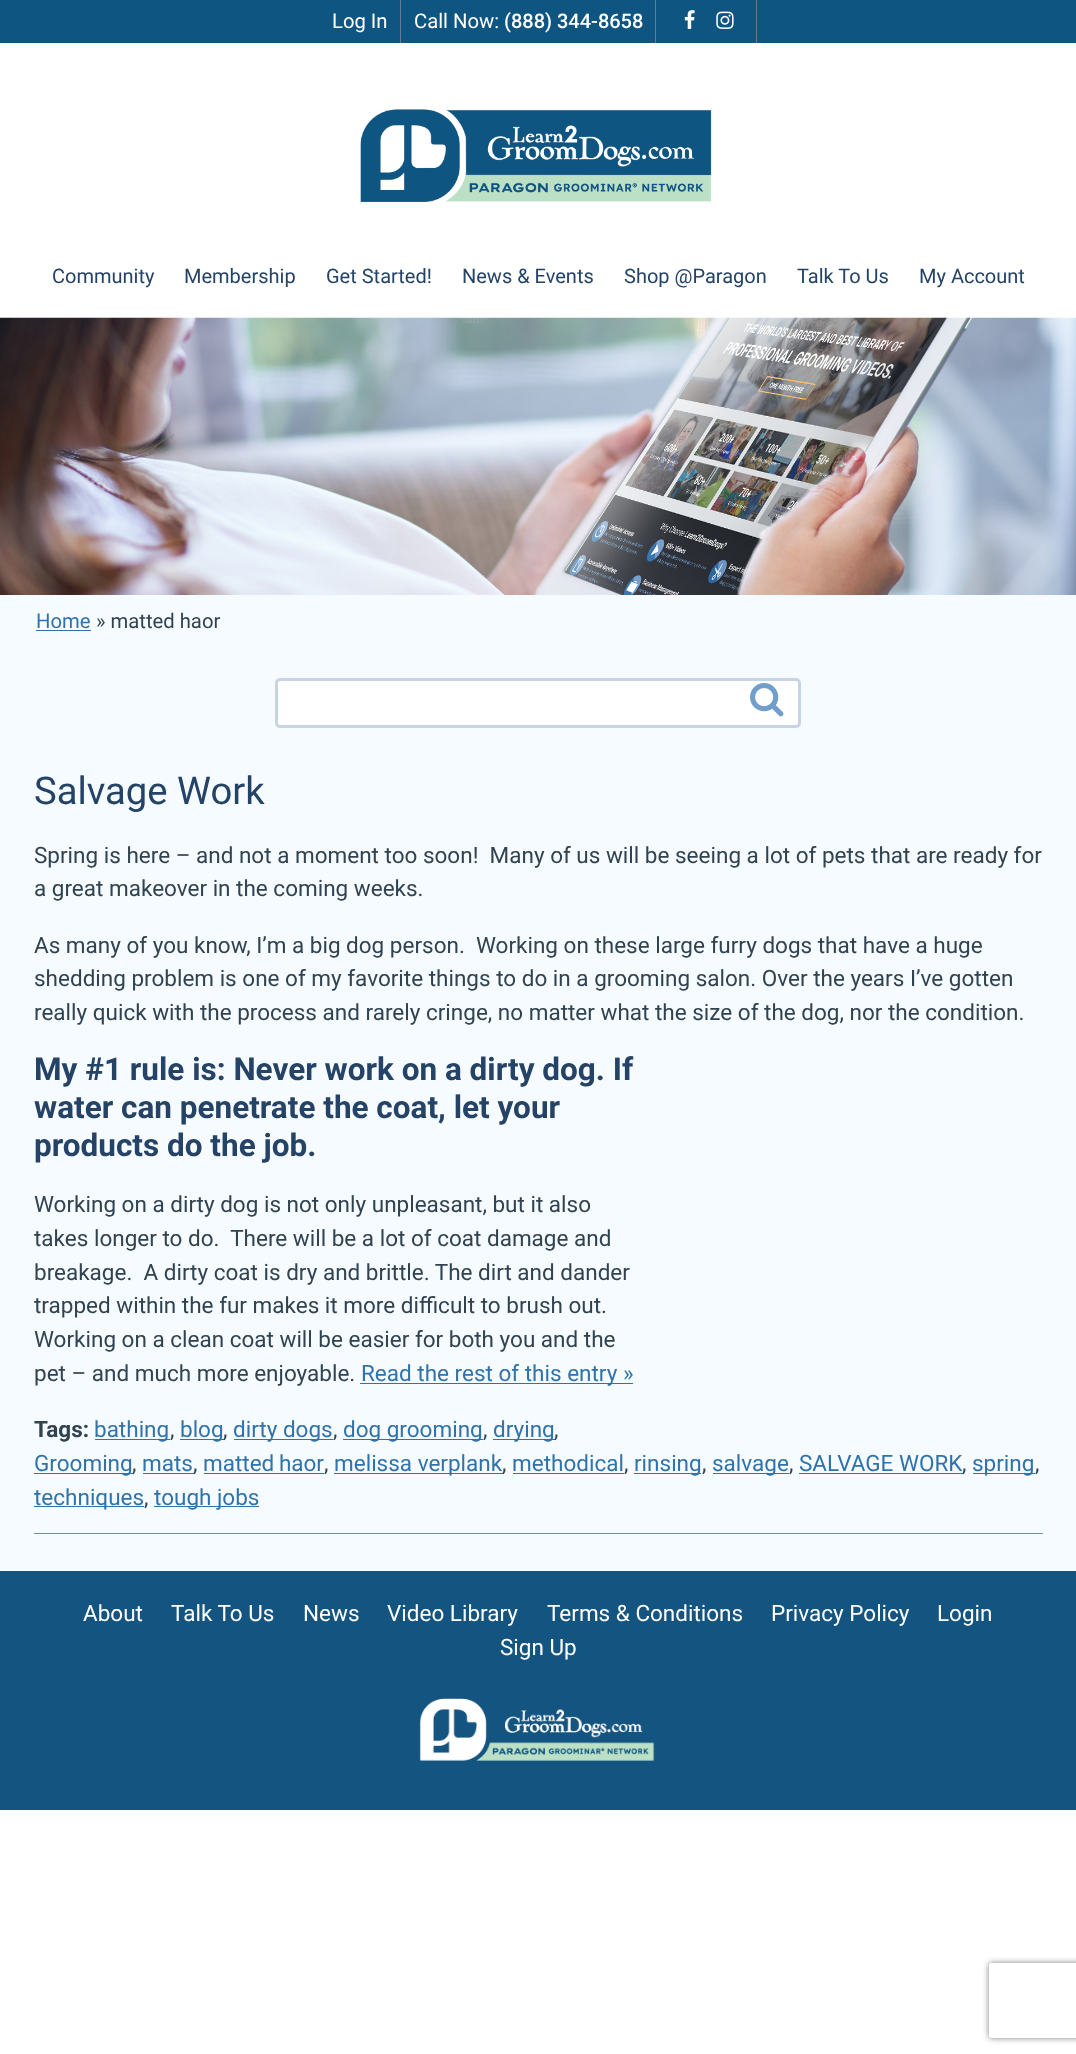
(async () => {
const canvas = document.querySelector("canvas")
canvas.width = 1076
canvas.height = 2054
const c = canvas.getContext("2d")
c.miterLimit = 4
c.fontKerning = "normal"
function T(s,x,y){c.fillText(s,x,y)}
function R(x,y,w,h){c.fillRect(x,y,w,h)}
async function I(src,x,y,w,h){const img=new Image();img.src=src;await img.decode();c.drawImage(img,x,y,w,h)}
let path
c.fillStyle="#fff"
R(0,0,1076,2054)
c.fillStyle="#f6fbff"
R(0,595,1076,976)
c.fillStyle="#0e5581"
R(0,0,1076,43)
c.fillStyle="#667c94"
R(400,0,1,43)
c.font="20.25px Roboto"
c.fillStyle="#fff"
T("Log In",332,28)
c.fillStyle="#667c94"
R(655,0,1,43)
c.fillStyle="#fff"
T("Call Now:",414,28)
c.font="500 20px Roboto"
T("(888) 344-8658",504,28)
c.fillStyle="#667c94"
R(756,0,1,43)
await I("1.png",684,10,11,19)
await I("2.png",716,11,18,18)
await I("3.png",360,109,352,93)
c.font="20px Roboto"
c.fillStyle="#244366"
T("Community",52,283)
T("Membership",184,283)
T("Get Started!",326,283)
T("News & Events",462,283)
T("Shop @Paragon",624,283)
T("Talk To Us",797,283)
T("My Account",919,283)
await I("4.png",0,317,1076,278)
c.font="20.25px Roboto"
c.fillStyle="#3073ac"
T("Home",36,628)
R(36,630,55,1)
c.fillStyle="#314351"
T("» matted haor",96,628)
c.fillStyle="#fff"
c.beginPath()
c.roundRect(276.5,679.5,523,47,3.5)
c.fill()
c.strokeStyle="#c6d4e3"
c.lineWidth=3
c.stroke()
await I("5.png",750,683,34,34)
c.font="38.25px Roboto"
c.fillStyle="#244366"
T("Salvage Work",34,804)
c.font="22.5px Roboto"
c.fillStyle="#314351"
T("Spring is here – and not a moment too soon!  Many of us will be seeing a lot of pets that are ready for",34,863)
T("a great makeover in the coming weeks.",34,896)
T("As many of you know, I’m a big dog person.  Working on these large furry dogs that have a huge",34,953)
T("shedding problem is one of my favorite things to do in a grooming salon. Over the years I’ve gotten",34,986)
T("really quick with the process and rarely cringe, no matter what the size of the dog, nor the condition.",34,1020)
c.font="bold 31.5px Roboto"
c.fillStyle="#244366"
T("My #1 rule is: Never work on a dirty dog. If",34,1080)
T("water can penetrate the coat, let your",34,1118)
T("products do the job.",34,1156)
c.font="22.5px Roboto"
c.fillStyle="#314351"
T("Working on a dirty dog is not only unpleasant, but it also",34,1212)
T("takes longer to do.  There will be a lot of coat damage and",34,1246)
T("breakage.  A dirty coat is dry and brittle. The dirt and dander",34,1280)
T("trapped within the fur makes it more difficult to brush out.",34,1313)
T("Working on a clean coat will be easier for both you and the",34,1347)
T("pet – and much more enjoyable.",34,1381)
c.fillStyle="#3073ac"
R(360,1383,273,1)
T("Read the rest of this entry »",361,1381)
c.font="bold 22.5px Roboto"
c.fillStyle="#314351"
T("Tags:",34,1437)
c.fillStyle="#3073ac"
R(95,1439,75,1)
c.font="22.5px Roboto"
T("bathing",94,1437)
c.fillStyle="#314351"
T(",",170,1437)
c.fillStyle="#3073ac"
R(180,1439,44,1)
T("blog",180,1437)
c.fillStyle="#314351"
T(",",223,1437)
c.fillStyle="#3073ac"
R(234,1439,99,1)
T("dirty dogs",233,1437)
c.fillStyle="#314351"
T(",",333,1437)
c.fillStyle="#3073ac"
R(343,1439,140,1)
T("dog grooming",343,1437)
c.fillStyle="#314351"
T(",",483,1437)
c.fillStyle="#3073ac"
R(493,1439,62,1)
T("drying",493,1437)
c.fillStyle="#314351"
T(",",554,1437)
c.fillStyle="#3073ac"
R(34,1473,99,1)
T("Grooming",34,1471)
c.fillStyle="#314351"
T(",",132,1471)
c.fillStyle="#3073ac"
T("mats",142,1471)
R(143,1473,51,1)
c.fillStyle="#314351"
T(",",193,1471)
c.wordSpacing="-1px"
c.fillStyle="#3073ac"
T("matted haor",203,1471)
R(204,1473,120,1)
c.wordSpacing="0px"
c.fillStyle="#314351"
T(",",324,1471)
c.fillStyle="#3073ac"
R(334,1473,169,1)
T("melissa verplank",334,1471)
c.fillStyle="#314351"
T(",",502,1471)
c.fillStyle="#3073ac"
T("methodical",512,1471)
R(513,1473,111,1)
c.fillStyle="#314351"
T(",",624,1471)
c.fillStyle="#3073ac"
R(634,1473,67,1)
T("rinsing",634,1471)
c.fillStyle="#314351"
T(",",702,1471)
c.fillStyle="#3073ac"
R(713,1473,76,1)
T("salvage",712,1471)
c.fillStyle="#314351"
T(",",789,1471)
c.fillStyle="#3073ac"
T("SALVAGE WORK",799,1471)
R(799,1473,164,1)
c.fillStyle="#314351"
T(",",962,1471)
c.fillStyle="#3073ac"
R(973,1473,62,1)
T("spring",972,1471)
c.fillStyle="#314351"
T(",",1035,1471)
c.fillStyle="#3073ac"
R(34,1506,110,1)
T("techniques",34,1505)
c.fillStyle="#314351"
T(",",144,1505)
c.fillStyle="#3073ac"
R(154,1506,105,1)
T("tough jobs",154,1505)
c.fillStyle="#7292aa"
R(34,1533,1009,1)
c.fillStyle="#145480"
R(0,1571,1076,239)
c.fillStyle="#fff"
T("About",83,1621)
T("Talk To Us",171,1621)
T("News",303,1621)
T("Video Library",387,1621)
T("Terms & Conditions",547,1621)
T("Privacy Policy",771,1621)
T("Login",937,1621)
T("Sign Up",500,1655)
await I("6.png",419,1698,236,63)
c.save()
path = new Path2D("M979 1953h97v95h-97zm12.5 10h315c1.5 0 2.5 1 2.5 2.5v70c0 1.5-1 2.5-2.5 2.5h-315c-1.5 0-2.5-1-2.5-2.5v-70c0-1.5 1-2.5 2.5-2.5z")
c.clip(path,"evenodd")
c.fillStyle="#808080"
c.filter="blur(3px)"
c.beginPath()
c.roundRect(989,1963,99,75,2.5)
c.fill()
c.filter="none"
c.restore()
})()
